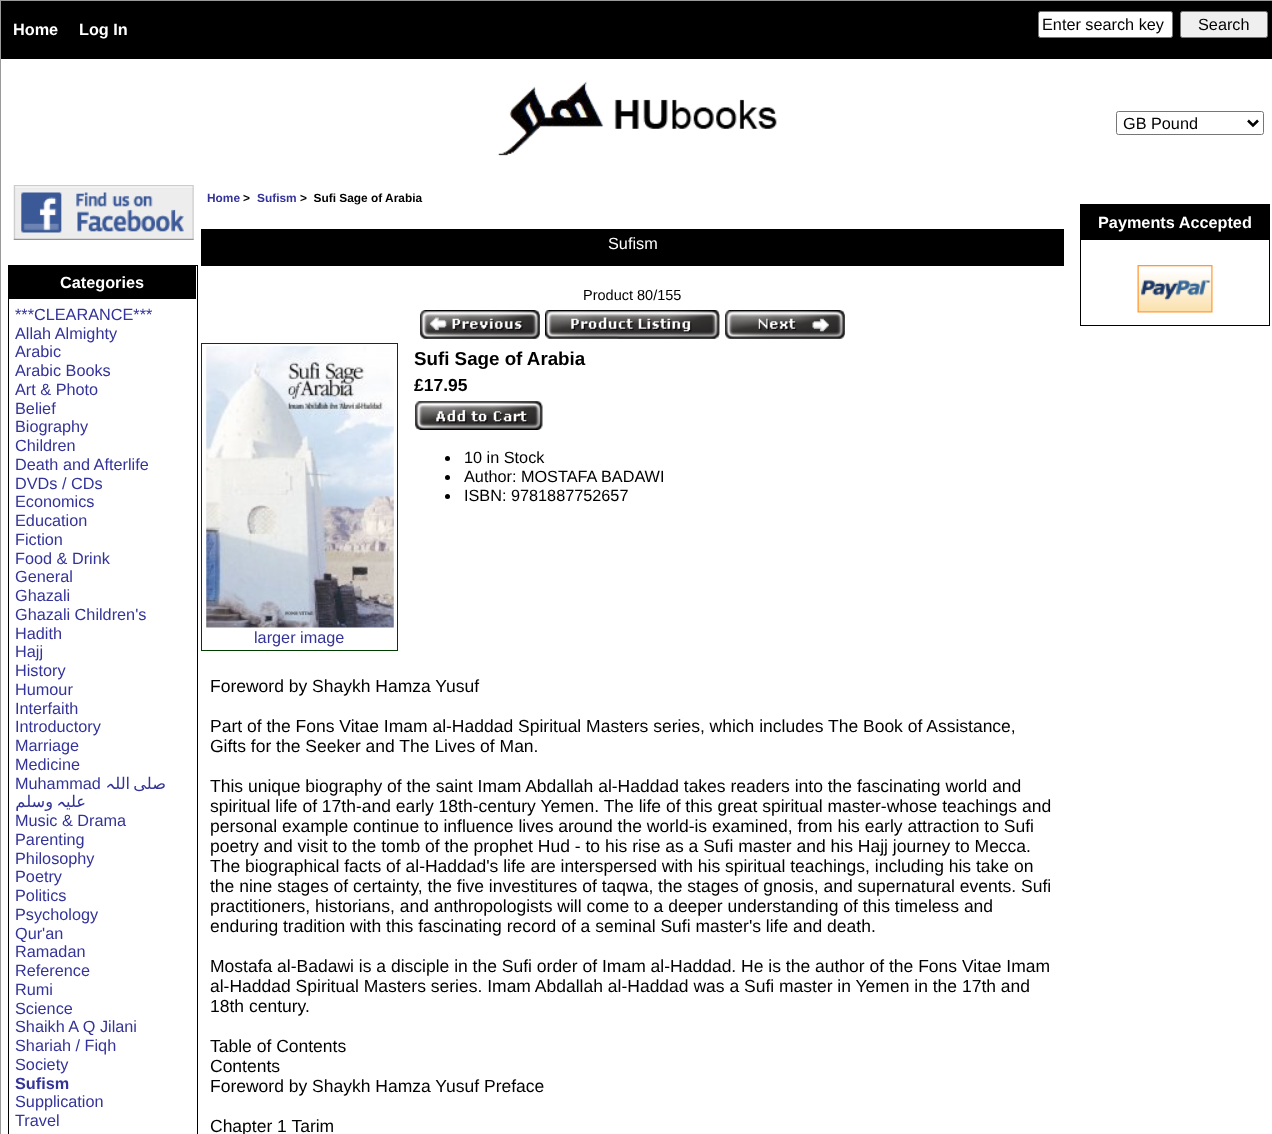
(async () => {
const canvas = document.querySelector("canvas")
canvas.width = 1272
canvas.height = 1134
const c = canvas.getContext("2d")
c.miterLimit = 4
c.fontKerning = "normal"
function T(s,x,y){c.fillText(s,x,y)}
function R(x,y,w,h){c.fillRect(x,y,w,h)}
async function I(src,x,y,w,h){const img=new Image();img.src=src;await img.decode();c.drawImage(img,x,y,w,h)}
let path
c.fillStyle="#fff"
R(0,0,1272,1134)
c.strokeStyle="#9a9a9a"
c.strokeRect(.5,.5,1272,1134)
c.fillStyle="#000"
R(1,1,1271,58)
c.font="bold 16.25px Liberation Sans"
c.fillStyle="#fff"
T("Home",13,35)
T("Log In",79,35)
c.beginPath()
c.roundRect(1038.5,11.5,134,26,2)
c.fill()
c.strokeStyle="#767676"
c.stroke()
c.font="16.25px Liberation Sans"
c.fillStyle="#000"
T("Enter search key",1042,30)
c.fillStyle="#efefef"
c.beginPath()
c.roundRect(1180.5,11.5,87,26,2)
c.fill()
c.stroke()
c.fillStyle="#000"
T("Search",1198,30)
await I("1.png",498,81,279,75)
c.beginPath()
c.roundRect(1116.5,111.5,147,23,2)
c.stroke()
path = new Path2D("M1248 120.5l5 5l5-5")
c.strokeStyle="#000"
c.lineWidth=2.5
c.stroke(path)
T("GB Pound",1123,129)
c.font="bold 11.9px Liberation Sans"
c.fillStyle="#339"
T("Home",207,202)
c.fillStyle="#000"
T(">",243,202)
c.fillStyle="#339"
T("Sufism",257,202)
c.fillStyle="#000"
T(">  Sufi Sage of Arabia",300,202)
R(201,229,863,37)
c.font="16.25px Liberation Sans"
c.fillStyle="#fff"
T("Sufism",608,249)
c.font="14.5px Liberation Sans"
c.fillStyle="#000"
T("Product 80/155",583,300)
await I("2.png",420,310,120,29)
await I("3.png",545,310,175,29)
await I("4.png",725,310,120,29)
c.font="bold 18.75px Liberation Sans"
T("Sufi Sage of Arabia",414,365)
c.font="bold 17.5px Liberation Sans"
T("£17.95",414,391)
await I("5.png",415,401,128,29)
c.beginPath()
c.arc(447.5,458.5,2.5,0,7)
c.fill()
c.font="16.25px Liberation Sans"
T("10 in Stock",464,463)
c.beginPath()
c.arc(447.5,477.5,2.5,0,7)
c.fill()
T("Author: MOSTAFA BADAWI",464,482)
c.beginPath()
c.arc(447.5,496.5,2.5,0,7)
c.fill()
T("ISBN: 9781887752657",464,501)
c.strokeStyle="#003d00"
c.lineWidth=1
c.strokeRect(201.5,343.5,196,307)
await I("6.png",206,346,188,282)
c.fillStyle="#339"
T("larger image",254,643)
c.font="17.5px Liberation Sans"
c.fillStyle="#000"
T("Foreword by Shaykh Hamza Yusuf",210,692)
T("Part of the Fons Vitae Imam al-Haddad Spiritual Masters series, which includes The Book of Assistance,",210,732)
T("Gifts for the Seeker and The Lives of Man.",210,752)
T("This unique biography of the saint Imam Abdallah al-Haddad takes readers into the fascinating world and",210,792)
T("spiritual life of 17th-and early 18th-century Yemen. The life of this great spiritual master-whose teachings and",210,812)
T("personal example continue to influence lives around the world-is examined, from his early attraction to Sufi",210,832)
T("poetry and visit to the tomb of the prophet Hud - to his rise as a Sufi master and his Hajj journey to Mecca.",210,852)
T("The biographical facts of al-Haddad's life are interspersed with his spiritual teachings, including his take on",210,872)
T("the nine stages of certainty, the five investitures of taqwa, the stages of gnosis, and supernatural events. Sufi",210,892)
T("practitioners, historians, and anthropologists will come to a deeper understanding of this timeless and",210,912)
T("enduring tradition with this fascinating record of a seminal Sufi master's life and death.",210,932)
T("Mostafa al-Badawi is a disciple in the Sufi order of Imam al-Haddad. He is the author of the Fons Vitae Imam",210,972)
T("al-Haddad Spiritual Masters series. Imam Abdallah al-Haddad was a Sufi master in Yemen in the 17th and",210,992)
T("18th century.",210,1012)
T("Table of Contents",210,1052)
T("Contents",210,1072)
T("Foreword by Shaykh Hamza Yusuf Preface",210,1092)
T("Chapter 1 Tarim",210,1132)
c.strokeStyle="#000"
c.strokeRect(1080.5,204.5,189,121)
R(1081,205,188,35)
c.font="bold 16.25px Liberation Sans"
c.fillStyle="#fff"
T("Payments Accepted",1098,228)
await I("7.png",1137,265,76,48)
await I("8.png",13,185,181,55)
c.strokeRect(8.5,265.5,189,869)
c.fillStyle="#000"
R(9,266,187,33)
c.fillStyle="#fff"
T("Categories",60,288)
c.font="16.25px Liberation Sans"
c.fillStyle="#339"
T("***CLEARANCE***",15,320)
T("Allah Almighty",15,339)
T("Arabic",15,357)
T("Arabic Books",15,376)
T("Art & Photo",15,395)
T("Belief",15,414)
T("Biography",15,432)
T("Children",15,451)
T("Death and Afterlife",15,470)
T("DVDs / CDs",15,489)
T("Economics",15,507)
T("Education",15,526)
T("Fiction",15,545)
T("Food & Drink",15,564)
T("General",15,582)
T("Ghazali",15,601)
T("Ghazali Children's",15,620)
T("Hadith",15,639)
T("Hajj",15,657)
T("History",15,676)
T("Humour",15,695)
T("Interfaith",15,714)
T("Introductory",15,732)
T("Marriage",15,751)
T("Medicine",15,770)
T("Muhammad",15,789)
c.direction="rtl"
c.font="16.25px Cascadia Code"
T("‍ہ",115,789)
c.wordSpacing="-2px"
c.font="16.25px DejaVu Sans"
T("صلی الل‍",166,789)
c.wordSpacing="0px"
T("وسلم",53,807)
c.font="16.25px Cascadia Code"
T("‍ہ",66,807)
c.font="16.25px DejaVu Sans"
T("علی‍",86,807)
c.direction="ltr"
c.font="16.25px Liberation Sans"
T("Music & Drama",15,826)
T("Parenting",15,845)
T("Philosophy",15,864)
T("Poetry",15,882)
T("Politics",15,901)
T("Psychology",15,920)
T("Qur'an",15,939)
T("Ramadan",15,957)
T("Reference",15,976)
T("Rumi",15,995)
T("Science",15,1014)
T("Shaikh A Q Jilani",15,1032)
T("Shariah / Fiqh",15,1051)
T("Society",15,1070)
c.font="bold 16.25px Liberation Sans"
T("Sufism",15,1089)
c.font="16.25px Liberation Sans"
T("Supplication",15,1107)
T("Travel",15,1126)
})()
